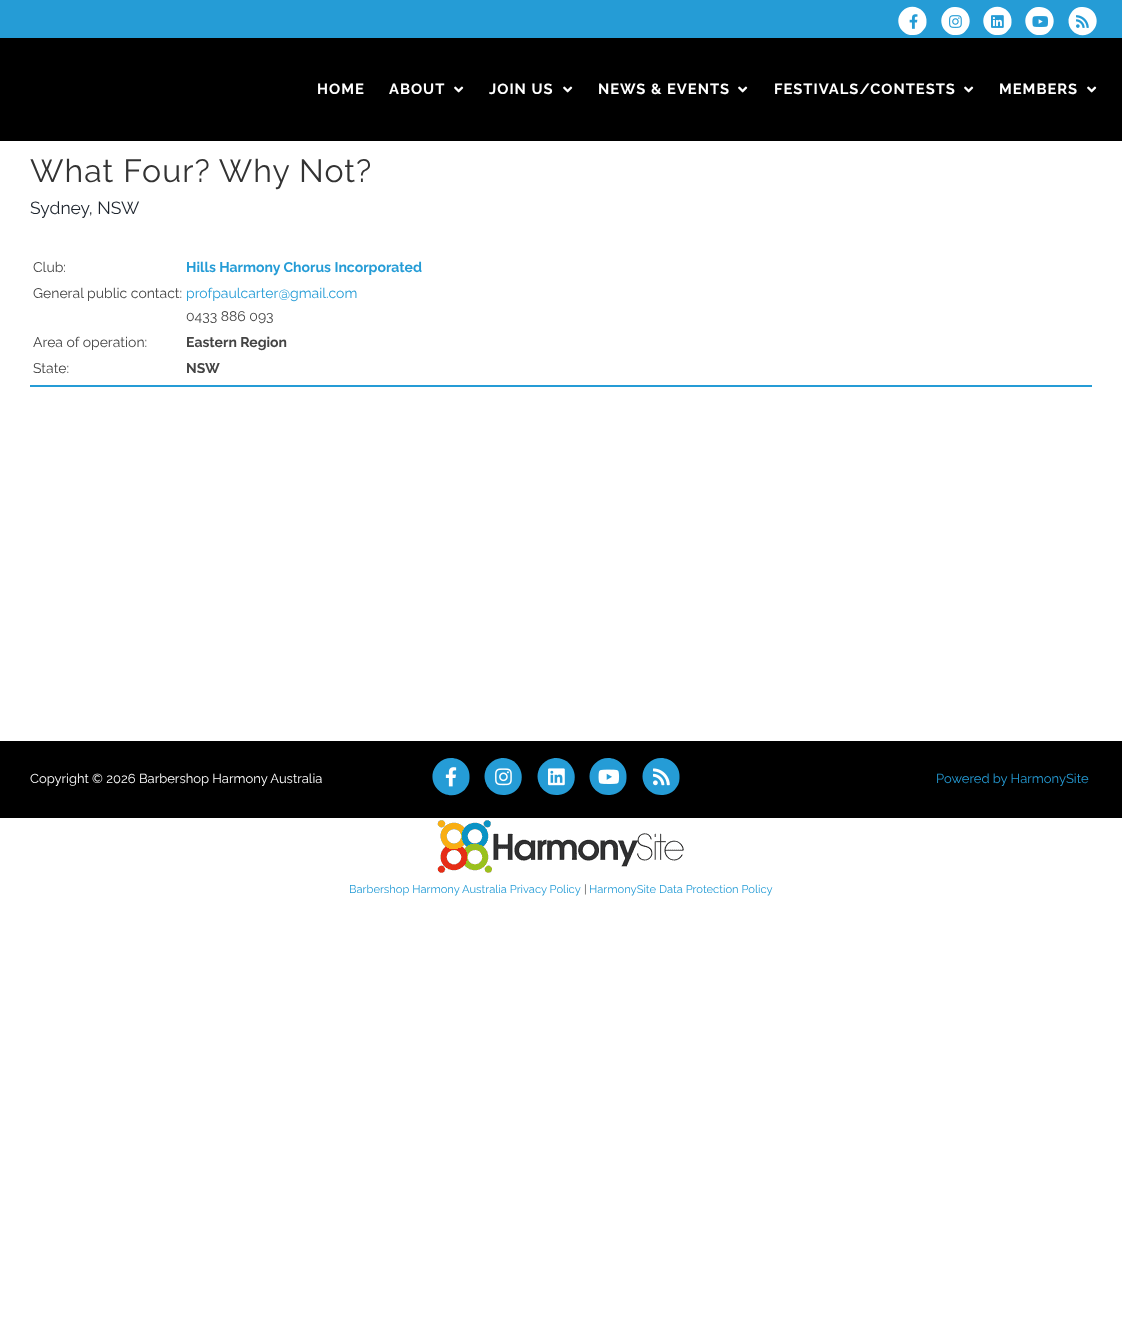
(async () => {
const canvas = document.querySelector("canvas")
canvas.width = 1122
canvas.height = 1332
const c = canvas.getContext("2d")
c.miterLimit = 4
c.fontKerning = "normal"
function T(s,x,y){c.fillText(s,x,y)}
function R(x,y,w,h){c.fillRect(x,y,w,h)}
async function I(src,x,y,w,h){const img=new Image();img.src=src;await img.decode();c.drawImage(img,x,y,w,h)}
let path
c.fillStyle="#fff"
R(0,0,1122,1332)
c.fillStyle="#259cd6"
R(0,0,1122,38)
c.fillStyle="#fff"
path = new Path2D("M902.5 11c9.5-9.5 25.5-1.5 24 11.5c0 3.5-1.5 6-4 8.5c-2 2.5-5 4-8.5 4c-13 1.5-21-14.5-11.5-24z")
c.fill(path)
await I("1.png",909,14,9,15)
path = new Path2D("M945.5 11c2.5-2.5 5.5-4 8.5-4c13.5-1.5 21 14.5 11.5 24c-2 2.5-5 4-8.5 4c-13 1.5-21-14.5-11.5-24z")
c.fill(path)
await I("2.png",949,15,13,13)
path = new Path2D("M987.5 11c9.5-9.5 25.5-1.5 24 11.5c0 3.5-1.5 6-4 8.5c-2 2.5-5 4-8.5 4c-13 1.5-21-14.5-11.5-24z")
c.fill(path)
await I("3.png",991,15,13,13)
path = new Path2D("M1029.5 11c2.5-2.5 5.5-4 8.5-4c13.5-1.5 21 14.5 11.5 24c-2 2.5-5 4-8.5 4c-13 1.5-21-14.5-11.5-24z")
c.fill(path)
await I("4.png",1032,16,16,11)
path = new Path2D("M1072.5 11c2.5-2.5 5.5-4 8.5-4c13.5-1.5 21 14.5 11.5 24c-9.5 9.5-25 2-24-11.5c.5-3 2-6 4-8.5z")
c.fill(path)
await I("5.png",1076,15,13,13)
c.fillStyle="#000"
R(0,38,1122,103)
c.letterSpacing="1px"
c.font="bold 14.75px Raleway"
c.fillStyle="#fff"
T("HOME",317,94)
T("ABOUT",389,94)
await I("6.png",454,86,10,7)
T("JOIN US",489,94)
await I("6.png",563,86,10,7)
T("NEWS & EVENTS",598,94)
await I("6.png",738,86,10,7)
T("FESTIVALS/CONTESTS",774,94)
await I("6.png",964,86,10,7)
T("MEMBERS",999,94)
await I("6.png",1087,86,10,7)
c.font="32px Raleway"
c.fillStyle="#333"
T("What Four? Why Not?",30,182)
c.letterSpacing="0px"
c.font="17.5px Raleway"
c.fillStyle="#1d242d"
T("Sydney, NSW",30,214)
c.font="14px Raleway"
c.fillStyle="#444"
T("Club:",33,272)
c.font="bold 14px Raleway"
c.fillStyle="#259cd6"
T("Hills Harmony Chorus Incorporated",186,272)
c.font="14px Raleway"
c.fillStyle="#444"
T("General public contact:",33,298)
c.fillStyle="#259cd6"
T("profpaulcarter@gmail.com",186,298)
c.fillStyle="#444"
T("0433 886 093",186,321)
T("Area of operation:",33,347)
c.font="bold 14px Raleway"
T("Eastern Region",186,347)
c.font="14px Raleway"
T("State:",33,373)
c.font="bold 14px Raleway"
T("NSW",186,373)
c.fillStyle="#259cd6"
R(30,385,1062,2)
c.fillStyle="#000"
R(0,741,1122,77)
c.font="13px Raleway"
c.fillStyle="#fff"
T("Copyright © 2026 Barbershop Harmony Australia",30,783)
c.fillStyle="#259cd6"
path = new Path2D("M438 763.5c12.5-12.5 33.5-2.5 31.5 15c0 4.5-2 8-5 11.5c-12.5 12-33.5 2-32-15.5c.5-4 2.5-8 5.5-11z")
c.fill(path)
await I("7.png",445,767,12,20)
path = new Path2D("M490 763.5c3-3 7-5 11.5-5.5c17-1.5 27 19.5 15 32c-3 3-7 4.5-11.5 5c-17 1.5-27.5-19-15-31.5z")
c.fill(path)
await I("8.png",495,768,17,18)
path = new Path2D("M543 763.5c3-3 7-5 11.5-5.5c17-1.5 27 19.5 15 32c-3 3-7 4.5-11.5 5c-17 1.5-27.5-19-15-31.5z")
c.fill(path)
await I("9.png",548,768,17,18)
path = new Path2D("M595 763.5c12.5-12.5 33.5-2.5 31.5 15c0 4.5-2 8-5 11.5c-3 3-7 4.5-11.5 5c-17 1.5-27.5-19-15-31.5z")
c.fill(path)
await I("10.png",598,769,22,15)
path = new Path2D("M648 763.5c12.5-12.5 33.5-2.5 31.5 15c0 4.5-2 8-5 11.5c-3 3-7 4.5-11.5 5c-17 1.5-27.5-19-15-31.5z")
c.fill(path)
await I("11.png",653,768,17,18)
T("Powered by HarmonySite",936,783)
await I("12.png",437,820,247,53)
c.font="11.2px Raleway"
T("Barbershop Harmony Australia Privacy Policy",349,893)
c.fillStyle="#444"
T("|",584,893)
c.fillStyle="#259cd6"
T("HarmonySite Data Protection Policy",589,893)
})()
